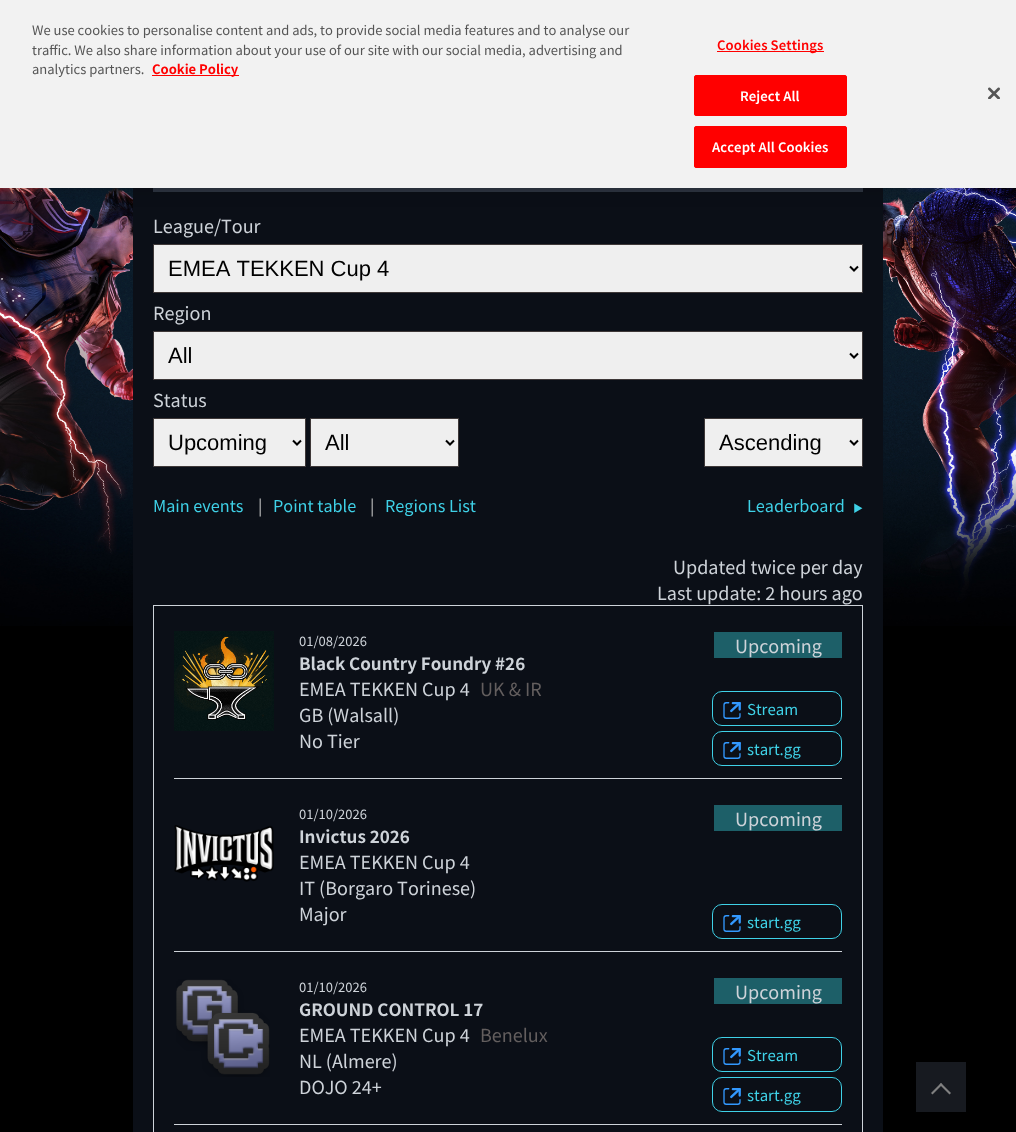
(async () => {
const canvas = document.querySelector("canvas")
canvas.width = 1016
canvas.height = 1132
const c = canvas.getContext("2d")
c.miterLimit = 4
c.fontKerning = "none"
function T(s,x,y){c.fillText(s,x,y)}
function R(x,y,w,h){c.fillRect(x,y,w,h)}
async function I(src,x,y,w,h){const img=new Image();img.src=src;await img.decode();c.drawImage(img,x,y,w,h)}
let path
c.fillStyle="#000"
R(0,0,1016,1132)
await I("2.png",0,188,1016,438)
c.fillStyle="#ced3d9"
c.filter="blur(0.5px)"
c.beginPath()
c.rect(133,0,750,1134)
c.fill()
c.filter="none"
c.fillStyle="#0b0f17"
R(133,188,750,944)
c.fillStyle="#2d3440"
R(153,188,710,4)
c.fillStyle="#00000033"
c.filter="blur(9px)"
c.beginPath()
c.rect(0,0,1016,188)
c.fill()
c.filter="none"
c.fillStyle="#f2f2f2"
R(0,0,1016,188)
c.font="13px Noto Sans JP"
c.fillStyle="#555"
T("We use cookies to personalise content and ads, to provide social media features and to analyse our",32,35)
T("traffic. We also share information about your use of our site with our social media, advertising and",32,55)
T("analytics partners.",32,74)
c.fillStyle="#f00"
R(152,75,87,1)
c.font="bold 13px Noto Sans JP"
T("Cookie Policy",152,74)
R(717,51,107,1)
c.letterSpacing="0.1px"
c.font="600 13px Noto Sans JP"
T("Cookies Settings",717,50)
c.beginPath()
c.roundRect(694.5,75.5,152,40,1.5)
c.fill()
c.strokeStyle="#f00"
c.stroke()
c.fillStyle="#fff"
T("Reject All",740,101)
c.fillStyle="#f00"
c.beginPath()
c.roundRect(694.5,126.5,152,41,1.5)
c.fill()
c.stroke()
c.fillStyle="#fff"
T("Accept All Cookies",712,152)
await I("1.png",988,87,12,12)
c.letterSpacing="0px"
c.font="18px Noto Sans JP"
c.fillStyle="#ced3d9"
T("League/Tour",153,233)
c.fillStyle="#efefef"
c.beginPath()
c.rect(153.5,244.5,709,48)
c.fill()
c.strokeStyle="#3e3838"
c.stroke()
path = new Path2D("M850 266.5l4 4l4-4")
c.strokeStyle="#000"
c.lineWidth=2
c.stroke(path)
c.font="22px Liberation Sans"
c.fillStyle="#000"
T("EMEA TEKKEN Cup 4",168,276)
c.font="18px Noto Sans JP"
c.fillStyle="#ced3d9"
T("Region",153,320)
c.fillStyle="#efefef"
c.beginPath()
c.rect(153.5,331.5,709,48)
c.fill()
c.strokeStyle="#3e3838"
c.lineWidth=1
c.stroke()
path = new Path2D("M850 353.5l4 4l4-4")
c.strokeStyle="#000"
c.lineWidth=2
c.stroke(path)
c.font="22px Liberation Sans"
c.fillStyle="#000"
T("All",168,363)
c.font="18px Noto Sans JP"
c.fillStyle="#ced3d9"
T("Status",153,407)
c.fillStyle="#efefef"
c.beginPath()
c.rect(153.5,418.5,152,48)
c.fill()
c.strokeStyle="#3e3838"
c.lineWidth=1
c.stroke()
path = new Path2D("M293 440.5l4 4l4-4")
c.strokeStyle="#000"
c.lineWidth=2
c.stroke(path)
c.font="22px Liberation Sans"
c.fillStyle="#000"
T("Upcoming",168,450)
c.fillStyle="#efefef"
c.beginPath()
c.rect(310.5,418.5,148,48)
c.fill()
c.strokeStyle="#3e3838"
c.lineWidth=1
c.stroke()
path = new Path2D("M446 440.5l4 4l4-4")
c.strokeStyle="#000"
c.lineWidth=2
c.stroke(path)
c.fillStyle="#000"
T("All",325,450)
c.fillStyle="#efefef"
c.beginPath()
c.rect(704.5,418.5,158,48)
c.fill()
c.strokeStyle="#3e3838"
c.lineWidth=1
c.stroke()
path = new Path2D("M850 440.5l4 4l4-4")
c.strokeStyle="#000"
c.lineWidth=2
c.stroke(path)
c.fillStyle="#000"
T("Ascending",719,450)
c.font="16.25px Noto Sans JP"
c.fillStyle="#3fd1e7"
T("Main events",153,512)
c.fillStyle="#c0c0c0"
T("|",258,512)
c.fillStyle="#3fd1e7"
T("Point table",273,512)
c.fillStyle="#c0c0c0"
T("|",370,512)
c.fillStyle="#3fd1e7"
T("Regions List",385,512)
T("Leaderboard",747,512)
c.font="10px Noto Sans JP"
T("▶",853,512)
c.font="18px Noto Sans JP"
c.fillStyle="#ced3d9"
T("Updated twice per day",673,574)
T("Last update: 2 hours ago",657,600)
c.strokeStyle="#ced3d9"
c.lineWidth=1
c.strokeRect(153.5,605.5,709,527)
R(174,778,668,1)
await I("3.png",174,631,100,100)
c.font="13px Noto Sans JP"
T("01/08/2026",299,646)
c.font="bold 17px Noto Sans JP"
T("Black Country Foundry #26",299,670)
c.font="18px Noto Sans JP"
T("EMEA TEKKEN Cup 4",299,696)
c.fillStyle="#635e5e"
T("UK & IR",480,696)
c.fillStyle="#ced3d9"
T("GB (Walsall)",299,722)
T("No Tier",299,748)
c.fillStyle="#1d5f68"
R(714,632,128,26)
c.fillStyle="#ced3d9"
T("Upcoming",735,653)
c.beginPath()
c.roundRect(712.5,691.5,129,34,9.5)
c.strokeStyle="#3fd1e7"
c.stroke()
await I("4.png",723,702,18,17)
c.font="15px Noto Sans JP"
c.fillStyle="#3fd1e7"
T("Stream",747,715)
c.beginPath()
c.roundRect(712.5,731.5,129,34,9.5)
c.stroke()
await I("4.png",723,742,18,17)
T("start.gg",747,755)
c.fillStyle="#ced3d9"
R(174,951,668,1)
c.font="13px Noto Sans JP"
T("01/10/2026",299,819)
c.font="bold 17px Noto Sans JP"
T("Invictus 2026",299,843)
c.font="18px Noto Sans JP"
T("EMEA TEKKEN Cup 4",299,869)
T("IT (Borgaro Torinese)",299,895)
T("Major",299,921)
c.fillStyle="#1d5f68"
R(714,805,128,26)
c.fillStyle="#ced3d9"
T("Upcoming",735,826)
await I("5.png",174,825,100,57)
c.beginPath()
c.roundRect(712.5,904.5,129,34,9.5)
c.stroke()
await I("4.png",723,915,18,17)
c.font="15px Noto Sans JP"
c.fillStyle="#3fd1e7"
T("start.gg",747,928)
c.fillStyle="#ced3d9"
R(174,1124,668,1)
await I("6.png",176,979,94,98)
c.font="13px Noto Sans JP"
T("01/10/2026",299,992)
c.font="bold 17px Noto Sans JP"
T("GROUND CONTROL 17",299,1016)
c.font="18px Noto Sans JP"
T("EMEA TEKKEN Cup 4",299,1042)
c.fillStyle="#635e5e"
T("Benelux",480,1042)
c.fillStyle="#ced3d9"
T("NL (Almere)",299,1068)
T("DOJO 24+",299,1094)
c.fillStyle="#1d5f68"
R(714,978,128,26)
c.fillStyle="#ced3d9"
T("Upcoming",735,999)
c.beginPath()
c.roundRect(712.5,1037.5,129,34,9.5)
c.stroke()
await I("4.png",723,1048,18,17)
c.font="15px Noto Sans JP"
c.fillStyle="#3fd1e7"
T("Stream",747,1061)
c.beginPath()
c.roundRect(712.5,1077.5,129,34,9.5)
c.stroke()
await I("7.png",723,1088,18,17)
T("start.gg",747,1101)
c.fillStyle="#171a20"
R(916,1062,50,50)
c.fillStyle="#808080"
path = new Path2D("M931 1093l10-10l1.5 1.5l-10 10z")
c.fill(path)
path = new Path2D("M939.5 1084.5l1.5-1.5l10 10l-1.5 1.5z")
c.fill(path)
})()
